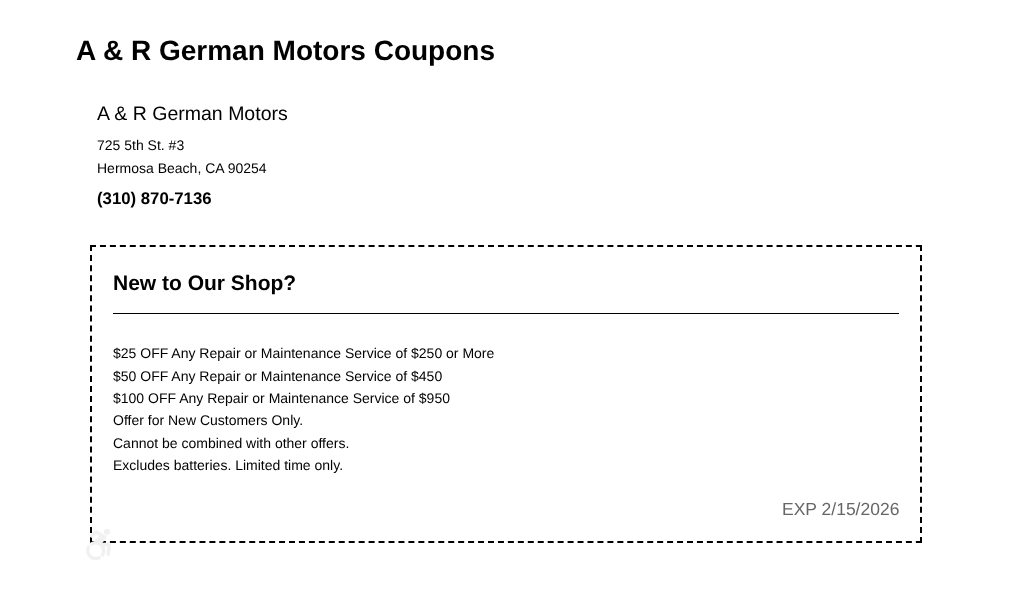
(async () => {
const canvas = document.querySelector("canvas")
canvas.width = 1012
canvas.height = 589
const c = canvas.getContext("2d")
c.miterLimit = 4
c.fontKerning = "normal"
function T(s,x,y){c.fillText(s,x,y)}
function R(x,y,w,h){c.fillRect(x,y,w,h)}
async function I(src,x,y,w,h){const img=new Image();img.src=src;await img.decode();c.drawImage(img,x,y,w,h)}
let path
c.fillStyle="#fff"
R(0,0,1012,589)
c.font="bold 28px Liberation Sans"
c.fillStyle="#000"
T("A & R German Motors Coupons",76,60)
c.font="19.5px Liberation Sans"
T("A & R German Motors",97,120)
c.font="14px Liberation Sans"
T("725 5th St. #3",97,150)
T("Hermosa Beach, CA 90254",97,173)
c.font="bold 16.75px Liberation Sans"
T("(310) 870-7136",97,204)
path = new Path2D("M90 246h832")
c.strokeStyle="#000"
c.lineWidth=2
c.setLineDash([6,3.95])
c.stroke(path)
path = new Path2D("M921 245v298")
c.setLineDash([6,4.07])
c.stroke(path)
path = new Path2D("M90 542h832")
c.setLineDash([6,3.95])
c.stroke(path)
path = new Path2D("M91 245v298")
c.setLineDash([6,4.07])
c.stroke(path)
R(113,313,786,1)
c.font="bold 21px Liberation Sans"
T("New to Our Shop?",113,290)
c.font="14px Liberation Sans"
T("$25 OFF Any Repair or Maintenance Service of $250 or More",113,358)
T("$50 OFF Any Repair or Maintenance Service of $450",113,381)
T("$100 OFF Any Repair or Maintenance Service of $950",113,403)
T("Offer for New Customers Only.",113,425)
T("Cannot be combined with other offers.",113,448)
T("Excludes batteries. Limited time only.",113,470)
c.font="17.5px Liberation Sans"
c.fillStyle="#666"
T("EXP 2/15/2026",782,515)
await I("1.png",86,529,25,31)
})()
